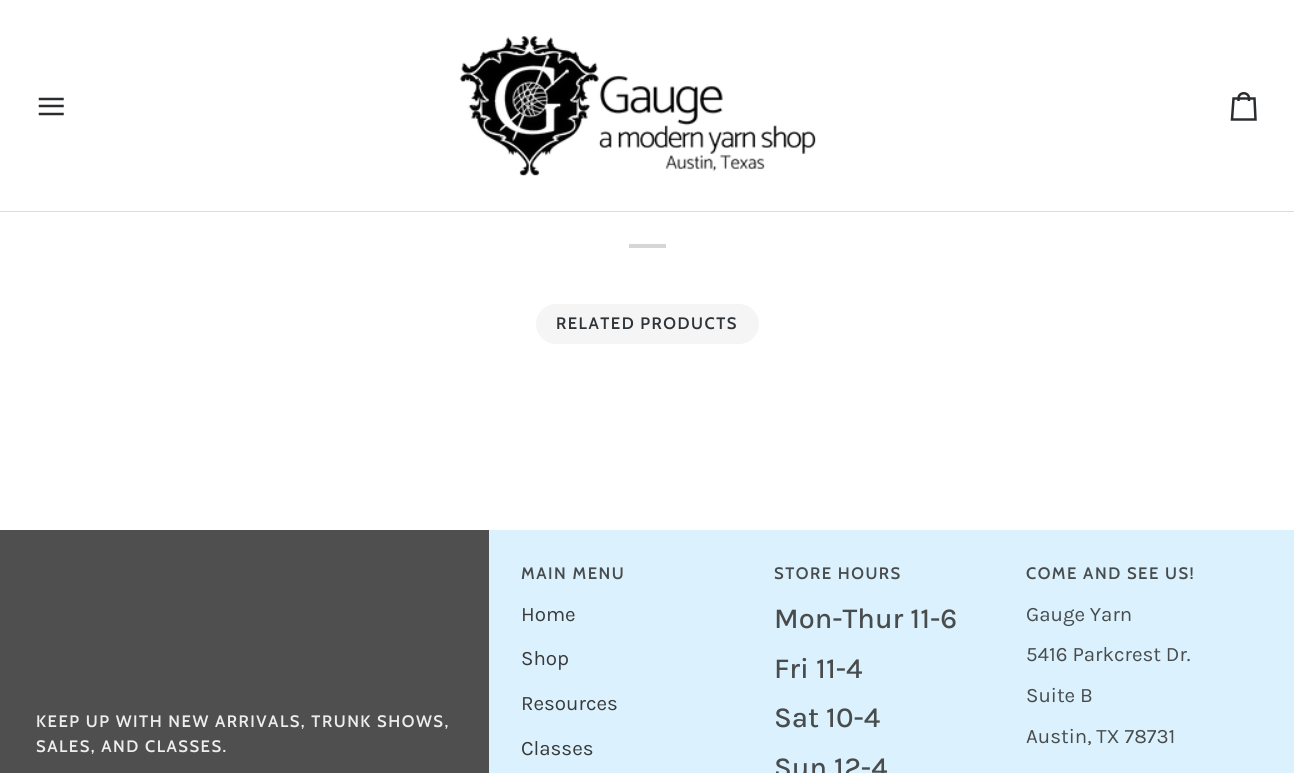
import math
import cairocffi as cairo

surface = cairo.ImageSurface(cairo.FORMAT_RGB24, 1294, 773)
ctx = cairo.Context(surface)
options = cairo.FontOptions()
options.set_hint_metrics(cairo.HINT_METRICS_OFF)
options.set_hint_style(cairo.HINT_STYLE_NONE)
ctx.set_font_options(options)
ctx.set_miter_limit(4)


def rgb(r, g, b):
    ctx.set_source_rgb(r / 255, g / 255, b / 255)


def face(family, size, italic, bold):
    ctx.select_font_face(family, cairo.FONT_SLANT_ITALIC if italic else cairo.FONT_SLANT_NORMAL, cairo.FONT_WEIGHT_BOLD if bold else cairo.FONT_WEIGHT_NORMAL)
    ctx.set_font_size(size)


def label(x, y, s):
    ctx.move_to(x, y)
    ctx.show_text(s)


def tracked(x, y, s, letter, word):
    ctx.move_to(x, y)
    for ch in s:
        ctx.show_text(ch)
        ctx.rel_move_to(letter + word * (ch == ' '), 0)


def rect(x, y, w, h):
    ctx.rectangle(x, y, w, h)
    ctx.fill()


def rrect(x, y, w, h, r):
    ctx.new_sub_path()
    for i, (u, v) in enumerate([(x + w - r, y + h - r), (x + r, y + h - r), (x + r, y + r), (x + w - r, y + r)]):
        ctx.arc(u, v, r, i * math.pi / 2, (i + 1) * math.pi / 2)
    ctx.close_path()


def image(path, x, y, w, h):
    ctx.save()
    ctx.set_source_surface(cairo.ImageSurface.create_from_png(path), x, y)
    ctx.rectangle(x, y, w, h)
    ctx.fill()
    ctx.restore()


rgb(255, 255, 255)
ctx.paint()
rgb(221, 221, 221)
rect(0, 211, 1294, 1)
ctx.new_path()
ctx.move_to(62.5, 99)
ctx.line_to(40, 99)
ctx.move_to(62.5, 106)
ctx.line_to(40, 106)
ctx.move_to(62.5, 114)
ctx.line_to(40, 114)
rgb(42, 45, 48)
ctx.set_line_width(2.5)
ctx.set_line_cap(cairo.LINE_CAP_SQUARE)
ctx.stroke()
image('image0.png', 459, 36, 357, 140)
ctx.new_path()
ctx.move_to(1249, 101)
ctx.line_to(1249, 98.5)
ctx.line_to(1254.5, 98.5)
ctx.line_to(1255.5, 119.5)
ctx.line_to(1232, 119.5)
ctx.line_to(1233.5, 98.5)
ctx.line_to(1238.5, 98.5)
ctx.curve_to(1238.5, 91.5, 1249, 91.5, 1249, 98.5)
ctx.line_to(1238.5, 98.5)
ctx.line_to(1238.5, 101)
ctx.set_line_cap(cairo.LINE_CAP_BUTT)
ctx.stroke()
rgb(213, 214, 215)
rect(629, 244, 37, 4)
rgb(245, 245, 245)
rrect(536, 304, 223, 40, 20)
ctx.fill()
face('Cabin SemiBold', 16.6, 0, 0)
rgb(46, 52, 56)
tracked(556, 329, 'RELATED PRODUCTS', 1.5, 0)
rgb(219, 242, 254)
rect(489, 530, 805, 243)
rgb(79, 79, 79)
rect(0, 530, 489, 243)
rgb(237, 237, 237)
tracked(36, 727, 'KEEP UP WITH NEW ARRIVALS, TRUNK SHOWS,', 1.5, 0)
tracked(36, 752, 'SALES, AND CLASSES.', 1.5, 0)
rgb(73, 76, 77)
tracked(521, 579, 'MAIN MENU', 1.5, 0)
face('Karla', 20.5, 0, 0)
rgb(57, 57, 57)
label(521, 621, 'Home')
label(521, 665, 'Shop')
label(521, 710, 'Resources')
label(521, 755, 'Classes')
face('Cabin SemiBold', 16.6, 0, 0)
rgb(73, 76, 77)
tracked(774, 579, 'STORE HOURS', 1.5, 0)
face('Karla Medium', 28.75, 0, 0)
label(774, 628, 'Mon-Thur 11-6')
label(774, 678, 'Fri 11-4')
label(774, 727, 'Sat 10-4')
label(774, 777, 'Sun 12-4')
face('Cabin SemiBold', 16.6, 0, 0)
tracked(1026, 579, 'COME AND SEE US!', 1.5, 0)
face('Karla', 20.5, 0, 0)
label(1026, 621, 'Gauge Yarn')
label(1026, 661, '5416 Parkcrest Dr.')
label(1026, 702, 'Suite B')
label(1026, 743, 'Austin, TX 78731')
surface.write_to_png('render.png')
